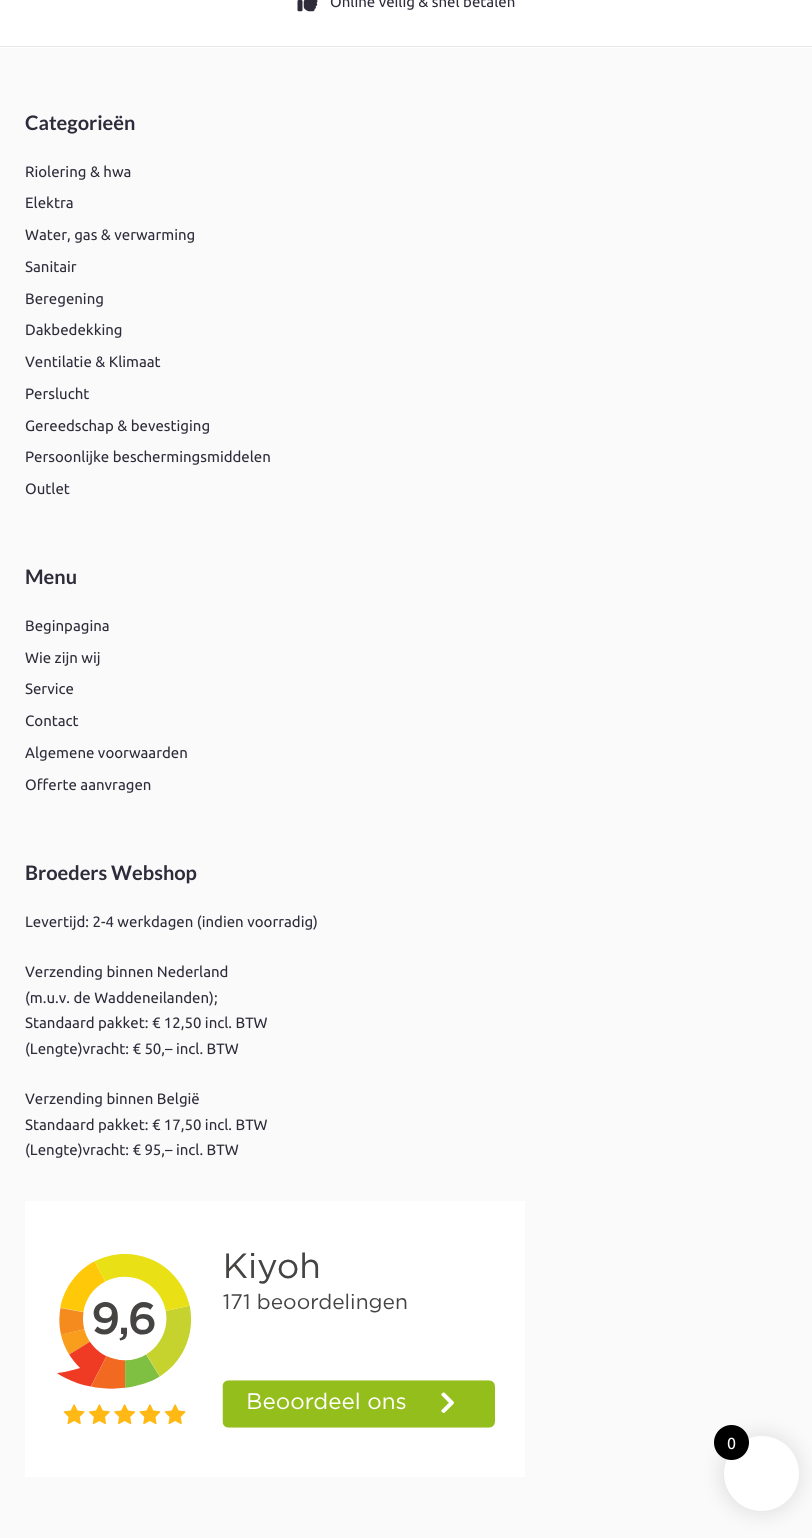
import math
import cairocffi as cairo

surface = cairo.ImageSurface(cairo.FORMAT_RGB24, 812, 1538)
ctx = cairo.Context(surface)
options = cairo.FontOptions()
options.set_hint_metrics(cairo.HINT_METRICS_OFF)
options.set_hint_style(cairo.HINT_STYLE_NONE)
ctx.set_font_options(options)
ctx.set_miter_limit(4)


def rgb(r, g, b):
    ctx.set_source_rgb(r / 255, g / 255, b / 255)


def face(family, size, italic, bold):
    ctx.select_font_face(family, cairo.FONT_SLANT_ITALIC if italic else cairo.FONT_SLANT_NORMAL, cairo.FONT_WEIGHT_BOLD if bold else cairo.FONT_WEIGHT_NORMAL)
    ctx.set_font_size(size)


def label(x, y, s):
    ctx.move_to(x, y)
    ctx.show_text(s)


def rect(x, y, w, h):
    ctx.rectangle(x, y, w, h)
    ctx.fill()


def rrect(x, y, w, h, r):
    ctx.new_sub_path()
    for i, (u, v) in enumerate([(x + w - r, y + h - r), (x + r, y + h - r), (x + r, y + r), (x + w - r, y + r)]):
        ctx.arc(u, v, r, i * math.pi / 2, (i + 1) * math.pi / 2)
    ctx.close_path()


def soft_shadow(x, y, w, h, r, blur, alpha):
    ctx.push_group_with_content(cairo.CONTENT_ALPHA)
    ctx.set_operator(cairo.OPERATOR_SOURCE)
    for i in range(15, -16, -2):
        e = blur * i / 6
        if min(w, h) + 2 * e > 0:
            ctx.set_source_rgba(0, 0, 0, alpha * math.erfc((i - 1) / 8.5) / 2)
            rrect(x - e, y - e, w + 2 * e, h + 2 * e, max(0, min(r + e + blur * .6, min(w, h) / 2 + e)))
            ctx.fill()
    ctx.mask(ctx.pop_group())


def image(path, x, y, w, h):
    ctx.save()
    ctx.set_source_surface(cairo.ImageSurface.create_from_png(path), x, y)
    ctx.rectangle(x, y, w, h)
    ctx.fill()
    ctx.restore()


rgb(255, 255, 255)
ctx.paint()
rgb(232, 232, 232)
rect(0, 46, 812, 1)
image('image0.png', 297, 0, 21, 12)
face('Ubuntu', 15, 0, 0)
rgb(46, 44, 58)
label(330, 7, 'Online veilig & snel betalen')
rgb(250, 250, 250)
rect(0, 48, 812, 1490)
face('Lato', 20, 0, 1)
rgb(46, 44, 58)
label(25, 130, 'Categorieën')
face('Ubuntu', 15, 0, 0)
label(25, 177, 'Riolering & hwa')
label(25, 208, 'Elektra')
label(25, 240, 'Water, gas & verwarming')
label(25, 272, 'Sanitair')
label(25, 304, 'Beregening')
label(25, 335, 'Dakbedekking')
label(25, 367, 'Ventilatie & Klimaat')
label(25, 399, 'Perslucht')
label(25, 431, 'Gereedschap & bevestiging')
label(25, 462, 'Persoonlijke beschermingsmiddelen')
label(25, 494, 'Outlet')
face('Lato', 20, 0, 1)
label(25, 584, 'Menu')
face('Ubuntu', 15, 0, 0)
label(25, 631, 'Beginpagina')
label(25, 663, 'Wie zijn wij')
label(25, 694, 'Service')
label(25, 726, 'Contact')
label(25, 758, 'Algemene voorwaarden')
label(25, 790, 'Offerte aanvragen')
face('Lato', 20, 0, 1)
label(25, 880, 'Broeders Webshop')
face('Ubuntu', 15, 0, 0)
label(25, 927, 'Levertijd: 2-4 werkdagen (indien voorradig)')
label(25, 977, 'Verzending binnen Nederland')
label(25, 1003, '(m.u.v. de Waddeneilanden);')
label(25, 1028, 'Standaard pakket: € 12,50 incl. BTW')
label(25, 1054, '(Lengte)vracht: € 50,– incl. BTW')
label(25, 1104, 'Verzending binnen België')
label(25, 1130, 'Standaard pakket: € 17,50 incl. BTW')
label(25, 1155, '(Lengte)vracht: € 95,– incl. BTW')
image('image1.png', 25, 1201, 500, 276)
rgb(0, 0, 0)
soft_shadow(721, 1434, 80, 80, 40, 9.5, 0.1)
rgb(255, 255, 255)
ctx.arc(761.5, 1473.5, 37.5, 0, 2 * math.pi)
ctx.fill()
rgb(0, 0, 0)
ctx.arc(731.5, 1442.5, 17.5, 0, 2 * math.pi)
ctx.fill()
face('Ubuntu', 16, 0, 0)
rgb(255, 255, 255)
label(727, 1449, '0')
surface.write_to_png('render.png')
